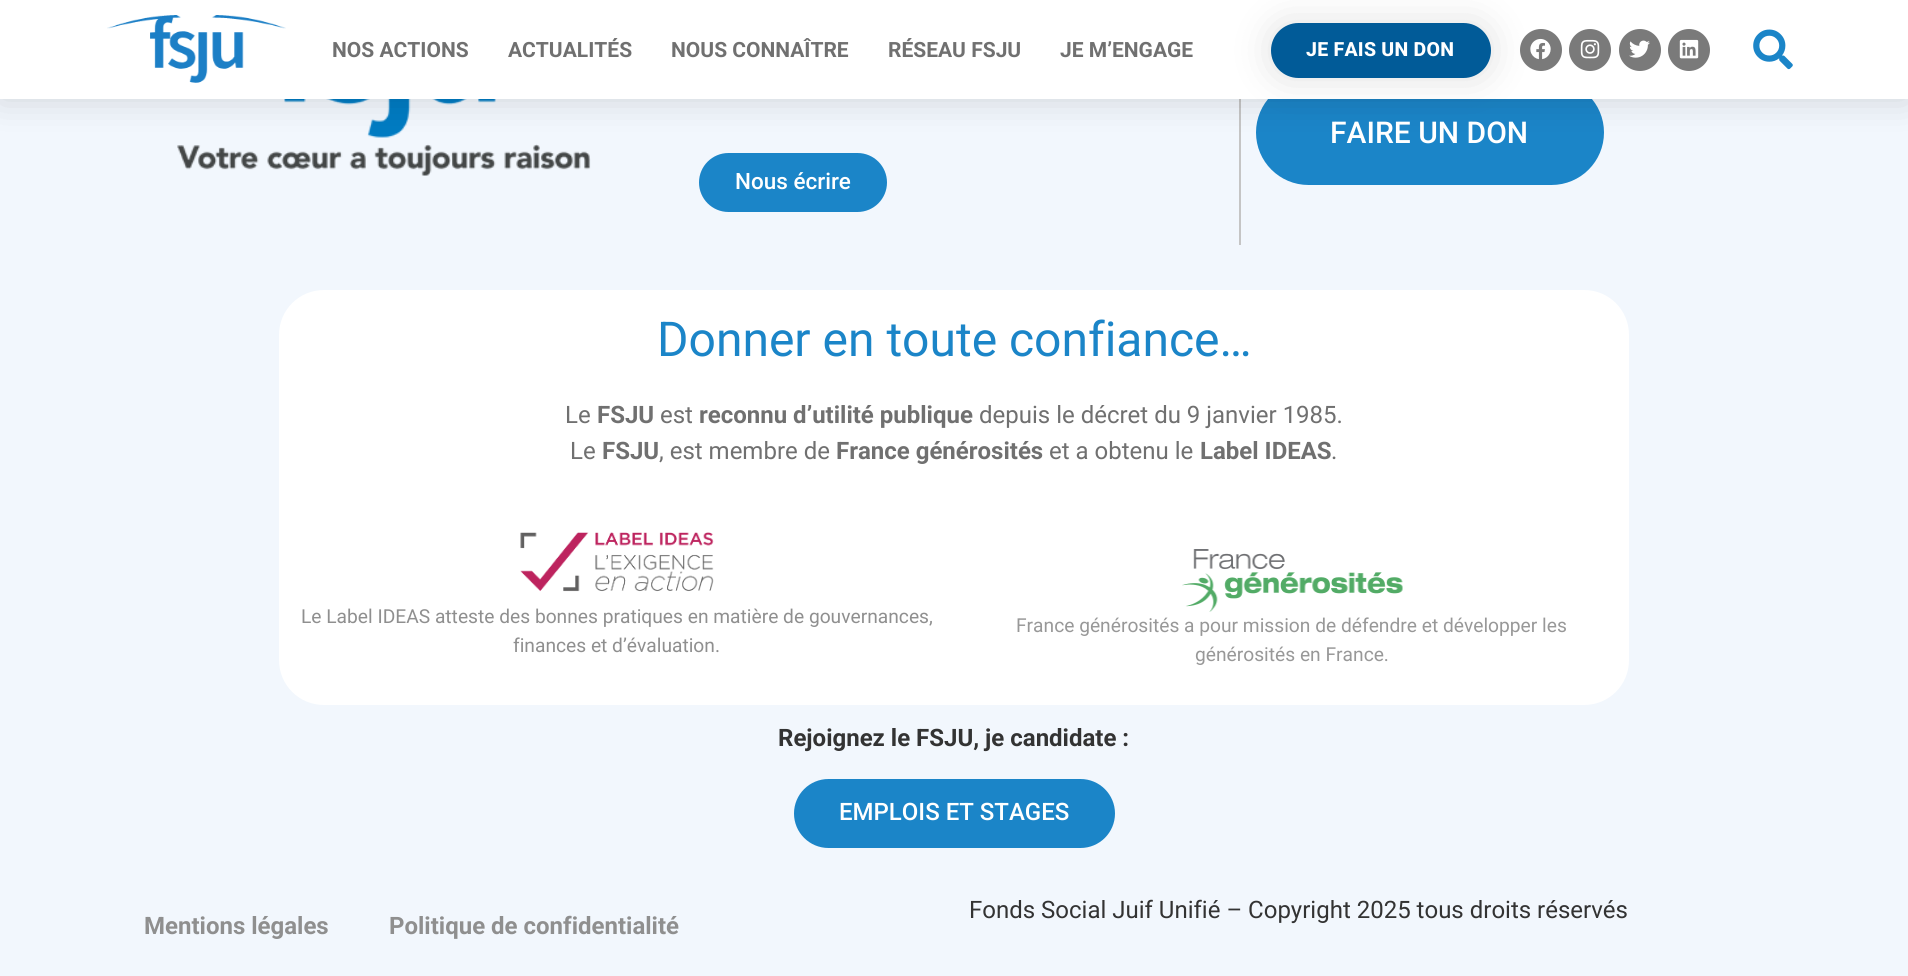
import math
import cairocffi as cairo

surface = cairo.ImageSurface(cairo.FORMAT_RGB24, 1908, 976)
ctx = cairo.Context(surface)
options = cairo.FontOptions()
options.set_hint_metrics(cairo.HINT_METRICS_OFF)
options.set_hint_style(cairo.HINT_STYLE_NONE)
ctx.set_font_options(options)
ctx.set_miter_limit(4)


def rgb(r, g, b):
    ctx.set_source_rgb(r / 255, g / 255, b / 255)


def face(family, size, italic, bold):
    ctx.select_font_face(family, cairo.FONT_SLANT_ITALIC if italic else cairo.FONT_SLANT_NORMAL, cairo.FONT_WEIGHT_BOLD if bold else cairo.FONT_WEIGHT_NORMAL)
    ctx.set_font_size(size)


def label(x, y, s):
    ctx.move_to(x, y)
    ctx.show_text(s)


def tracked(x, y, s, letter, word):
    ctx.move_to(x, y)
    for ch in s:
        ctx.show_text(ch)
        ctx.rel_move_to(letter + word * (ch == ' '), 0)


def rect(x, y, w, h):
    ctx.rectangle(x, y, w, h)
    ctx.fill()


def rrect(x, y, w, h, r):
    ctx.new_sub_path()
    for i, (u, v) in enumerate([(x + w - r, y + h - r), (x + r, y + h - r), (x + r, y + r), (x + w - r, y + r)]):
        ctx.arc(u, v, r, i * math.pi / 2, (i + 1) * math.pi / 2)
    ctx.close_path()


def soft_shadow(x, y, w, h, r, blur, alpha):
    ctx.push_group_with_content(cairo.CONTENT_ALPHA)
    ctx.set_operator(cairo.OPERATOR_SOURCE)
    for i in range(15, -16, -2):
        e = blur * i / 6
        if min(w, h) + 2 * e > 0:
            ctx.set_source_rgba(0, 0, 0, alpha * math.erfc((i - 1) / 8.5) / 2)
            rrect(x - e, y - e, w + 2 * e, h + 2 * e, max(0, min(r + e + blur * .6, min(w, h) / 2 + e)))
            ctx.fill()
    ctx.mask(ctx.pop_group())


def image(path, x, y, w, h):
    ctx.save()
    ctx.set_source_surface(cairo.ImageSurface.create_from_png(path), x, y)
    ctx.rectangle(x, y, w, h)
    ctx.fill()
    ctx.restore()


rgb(242, 247, 253)
ctx.paint()
image('image6.png', 177, 99, 414, 77)
rgb(197, 197, 197)
rect(1239, 99, 2, 146)
rgb(27, 133, 200)
rrect(1256, 80, 348, 105, 52.5)
ctx.fill()
rrect(699, 153, 188, 59, 29.5)
ctx.fill()
rgb(0, 0, 0)
soft_shadow(0, 0, 1908, 99, 0, 18, 0.15)
rgb(255, 255, 255)
rect(0, 0, 1908, 99)
image('image0.png', 107, 15, 179, 68)
face('Roboto', 21, 0, 1)
rgb(112, 112, 112)
label(332, 57, 'NOS ACTIONS')
label(508, 57, 'ACTUALITÉS')
label(671, 57, 'NOUS CONNAÎTRE')
label(888, 57, 'RÉSEAU FSJU')
label(1060, 57, 'JE M’ENGAGE')
rgb(0, 0, 0)
soft_shadow(1271, 23, 220, 55, 27.5, 20, 0.12)
rgb(1, 91, 152)
rrect(1271, 23, 220, 55, 27.5)
ctx.fill()
face('Roboto ExtraBold', 19.5, 0, 0)
rgb(255, 255, 255)
tracked(1306, 56, 'JE FAIS UN DON', 0.25, 0)
rgb(122, 122, 122)
ctx.new_path()
ctx.arc(1541, 50, 21, 0, 2 * math.pi)
ctx.fill()
image('image1.png', 1530, 38, 21, 22)
ctx.arc(1590, 50, 21, 0, 2 * math.pi)
ctx.fill()
image('image2.png', 1580, 39, 20, 20)
ctx.arc(1640, 50, 21, 0, 2 * math.pi)
ctx.fill()
image('image3.png', 1629, 40, 21, 18)
ctx.arc(1689, 50, 21, 0, 2 * math.pi)
ctx.fill()
image('image4.png', 1679, 39, 20, 20)
image('image5.png', 1753, 29, 40, 41)
face('Roboto Medium', 30, 0, 0)
rgb(255, 255, 255)
label(1330, 143, 'FAIRE UN DON')
face('Roboto Medium', 22.5, 0, 0)
label(735, 189, 'Nous écrire')
ctx.new_path()
ctx.move_to(324, 290)
ctx.line_to(1584, 290)
ctx.curve_to(1609, 290, 1629, 310, 1629, 335)
ctx.line_to(1629, 506)
ctx.line_to(279, 506)
ctx.line_to(279, 335)
ctx.curve_to(279, 310, 299, 290, 324, 290)
ctx.close_path()
ctx.fill()
face('Roboto', 48, 0, 0)
rgb(27, 133, 200)
label(657, 356, 'Donner en toute confiance…')
face('Roboto', 24, 0, 0)
rgb(112, 112, 112)
label(565, 423, 'Le')
face('Roboto', 24, 0, 1)
label(597, 423, 'FSJU')
face('Roboto', 24, 0, 0)
label(660, 423, 'est')
face('Roboto', 24, 0, 1)
label(699, 423, 'reconnu d’utilité publique')
face('Roboto', 24, 0, 0)
label(979, 423, 'depuis le décret du 9 janvier 1985.')
label(570, 459, 'Le')
face('Roboto', 24, 0, 1)
label(602, 459, 'FSJU')
face('Roboto', 24, 0, 0)
label(659, 459, ', est membre de')
face('Roboto', 24, 0, 1)
label(836, 459, 'France générosités')
face('Roboto', 24, 0, 0)
label(1049, 459, 'et a obtenu le')
face('Roboto', 24, 0, 1)
label(1200, 459, 'Label IDEAS')
face('Roboto', 24, 0, 0)
label(1331, 459, '.')
rgb(255, 255, 255)
ctx.new_path()
ctx.move_to(279, 506)
ctx.line_to(1629, 506)
ctx.line_to(1629, 660)
ctx.curve_to(1629, 685, 1609, 705, 1584, 705)
ctx.line_to(324, 705)
ctx.curve_to(299, 705, 279, 685, 279, 660)
ctx.close_path()
ctx.fill()
image('image7.png', 520, 532, 194, 60)
face('Roboto', 19.2, 0, 0)
rgb(143, 143, 143)
label(301, 623, 'Le Label IDEAS atteste des bonnes pratiques en matière de gouvernances,')
label(513, 652, 'finances et d’évaluation.')
image('image8.png', 1182, 549, 221, 63)
rgb(152, 152, 152)
label(1016, 632, 'France générosités a pour mission de défendre et développer les')
label(1195, 661, 'générosités en France.')
face('Roboto', 24, 0, 1)
rgb(51, 51, 51)
label(778, 746, 'Rejoignez le FSJU, je candidate :')
rgb(27, 133, 200)
rrect(794, 779, 321, 69, 34.5)
ctx.fill()
face('Roboto Medium', 24, 0, 0)
rgb(255, 255, 255)
label(839, 820, 'EMPLOIS ET STAGES')
face('Roboto', 24, 0, 0)
rgb(51, 51, 51)
label(969, 918, 'Fonds Social Juif Unifié – Copyright 2025 tous droits réservés')
face('Roboto', 24, 0, 1)
rgb(143, 143, 143)
label(144, 934, 'Mentions légales')
label(389, 934, 'Politique de confidentialité')
surface.write_to_png('render.png')
